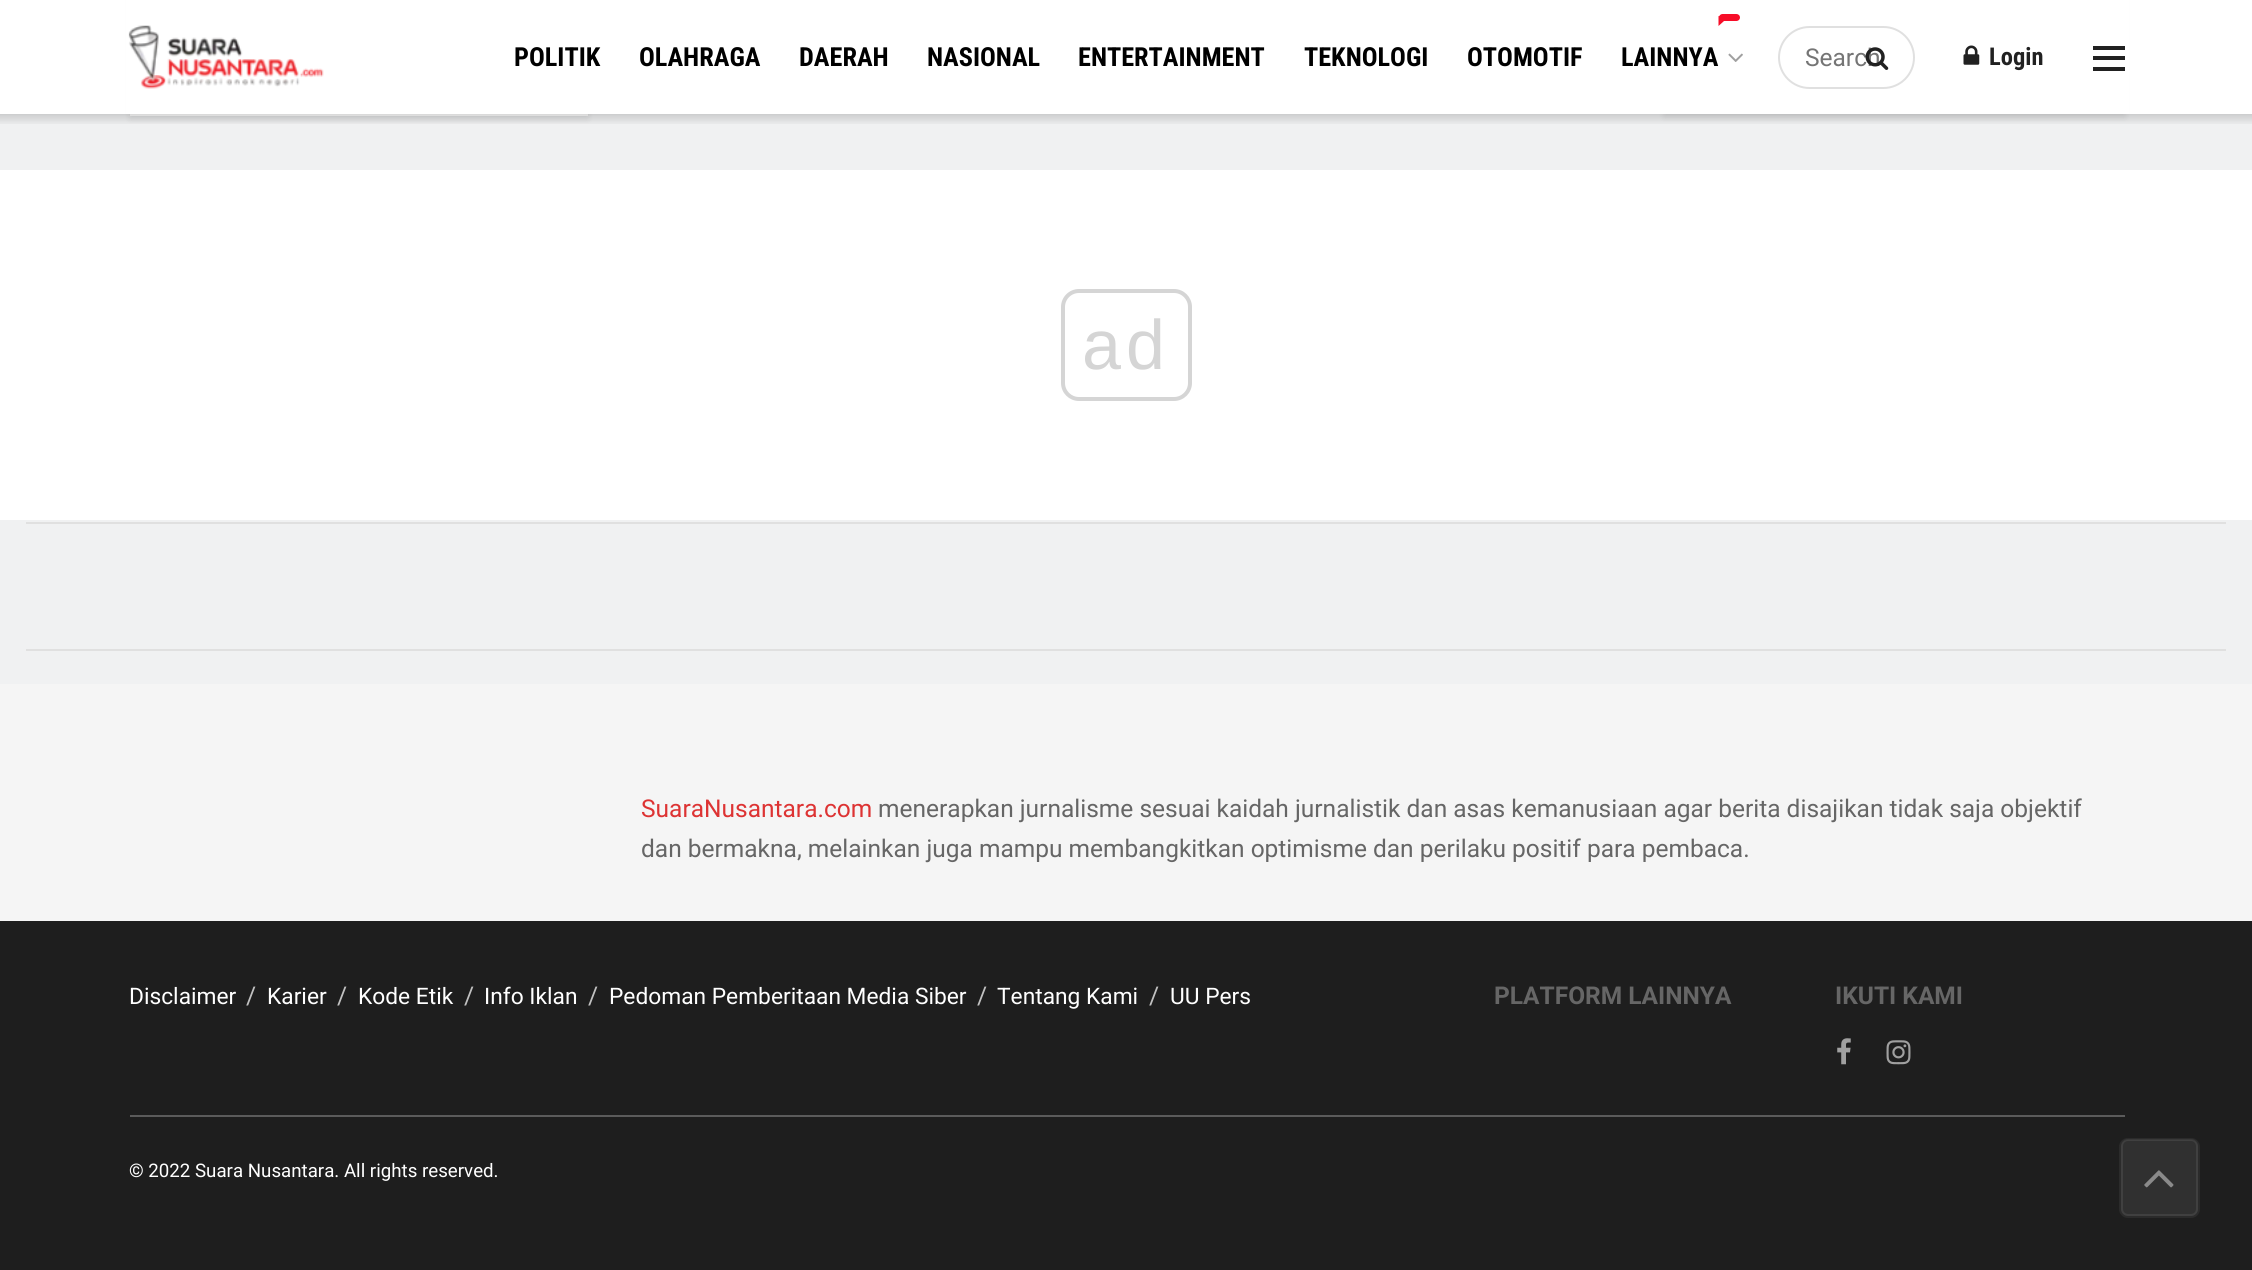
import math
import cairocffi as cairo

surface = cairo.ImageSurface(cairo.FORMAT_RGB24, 2252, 1270)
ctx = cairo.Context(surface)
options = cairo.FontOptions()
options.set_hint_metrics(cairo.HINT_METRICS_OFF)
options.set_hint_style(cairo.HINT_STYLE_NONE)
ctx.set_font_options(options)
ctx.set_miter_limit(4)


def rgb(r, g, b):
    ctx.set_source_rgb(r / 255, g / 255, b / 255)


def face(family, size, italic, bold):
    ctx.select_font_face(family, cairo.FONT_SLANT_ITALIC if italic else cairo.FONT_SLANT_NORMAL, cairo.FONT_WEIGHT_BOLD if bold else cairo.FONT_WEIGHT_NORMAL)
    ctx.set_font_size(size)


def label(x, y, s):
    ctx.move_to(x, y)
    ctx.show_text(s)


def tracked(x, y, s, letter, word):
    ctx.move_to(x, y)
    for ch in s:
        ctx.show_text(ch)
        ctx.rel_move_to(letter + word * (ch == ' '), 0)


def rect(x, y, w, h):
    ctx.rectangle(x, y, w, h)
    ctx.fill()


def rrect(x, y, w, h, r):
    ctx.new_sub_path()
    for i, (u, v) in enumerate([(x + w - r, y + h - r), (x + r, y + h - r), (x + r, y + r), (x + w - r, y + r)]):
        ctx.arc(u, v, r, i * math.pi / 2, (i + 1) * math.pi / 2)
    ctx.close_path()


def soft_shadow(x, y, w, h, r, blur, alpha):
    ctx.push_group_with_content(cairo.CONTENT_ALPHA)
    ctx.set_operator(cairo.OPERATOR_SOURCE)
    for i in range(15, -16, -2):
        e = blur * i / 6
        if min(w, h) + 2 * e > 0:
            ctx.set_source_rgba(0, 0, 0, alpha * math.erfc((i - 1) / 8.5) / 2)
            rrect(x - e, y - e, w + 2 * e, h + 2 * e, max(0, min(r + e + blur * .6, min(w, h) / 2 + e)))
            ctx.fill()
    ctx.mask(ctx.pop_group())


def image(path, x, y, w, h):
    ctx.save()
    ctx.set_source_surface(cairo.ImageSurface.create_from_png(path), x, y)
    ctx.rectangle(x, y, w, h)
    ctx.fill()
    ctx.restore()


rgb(255, 255, 255)
ctx.paint()
rgb(240, 241, 242)
rect(0, 114, 2252, 56)
rgb(0, 0, 0)
soft_shadow(130, -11, 458, 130, 0, 3.5, 0.08)
rgb(255, 255, 255)
rect(130, 114, 458, 2)
rgb(0, 0, 0)
soft_shadow(1664, -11, 461, 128, 0, 3.5, 0.08)
rgb(255, 255, 255)
rect(126, 0, 2003, 114)
image('image0.png', 128, 25, 196, 64)
face('Roboto Condensed', 26.25, 0, 1)
rgb(0, 0, 0)
label(514, 66, 'POLITIK')
label(639, 66, 'OLAHRAGA')
label(799, 66, 'DAERAH')
label(927, 66, 'NASIONAL')
label(1078, 66, 'ENTERTAINMENT')
label(1304, 66, 'TEKNOLOGI')
label(1467, 66, 'OTOMOTIF')
rgb(247, 13, 40)
rrect(1719, 14, 21, 7, 3.5)
ctx.fill()
ctx.new_path()
ctx.move_to(1718.5, 16)
ctx.line_to(1729, 16)
ctx.line_to(1724, 21)
ctx.close_path()
ctx.fill()
ctx.new_path()
ctx.move_to(1718.5, 26)
ctx.line_to(1718.5, 16)
ctx.line_to(1724, 21)
ctx.close_path()
ctx.fill()
rgb(0, 0, 0)
label(1621, 66, 'LAINNYA')
image('image1.png', 1728, 53, 15, 9)
rrect(1779, 27, 135, 61, 30.5)
rgb(224, 224, 224)
ctx.stroke()
face('Roboto', 24.5, 0, 0)
rgb(117, 117, 117)
label(1805, 66, 'Search')
image('image2.png', 1865, 47, 24, 23)
image('image3.png', 1963, 45, 17, 20)
face('Roboto Condensed', 24.5, 0, 1)
rgb(33, 33, 33)
label(1989, 65, 'Login')
rect(2093, 46, 32, 4)
rect(2093, 56, 32, 4)
rect(2093, 67, 32, 4)
gradient = cairo.LinearGradient(1126, 114, 1126, 126)
gradient.add_color_stop_rgba(0, 0, 0, 0, 0.15)
gradient.add_color_stop_rgba(1, 0, 0, 0, 0)
ctx.set_source(gradient)
rect(0, 114, 2252, 10)
rrect(1063, 291, 127, 108, 16)
rgb(213, 213, 213)
ctx.set_line_width(4)
ctx.stroke()
face('Liberation Sans', 70, 0, 0)
tracked(1082, 369, 'ad', 5, 0)
rgb(240, 241, 242)
rect(0, 520, 2252, 164)
rgb(224, 224, 224)
rect(26, 522, 2200, 2)
rect(26, 649, 2200, 2)
rgb(245, 245, 245)
rect(0, 684, 2252, 237)
face('Roboto', 24.5, 0, 0)
rgb(221, 51, 51)
label(641, 817, 'SuaraNusantara.com')
rgb(102, 102, 102)
label(878, 817, 'menerapkan jurnalisme sesuai kaidah jurnalistik dan asas kemanusiaan agar berita disajikan tidak saja objektif')
label(641, 857, 'dan bermakna, melainkan juga mampu membangkitkan optimisme dan perilaku positif para pembaca.')
rgb(30, 30, 30)
rect(0, 921, 2252, 349)
face('Roboto', 22.75, 0, 0)
rgb(255, 255, 255)
label(129, 1004, 'Disclaimer')
face('Roboto', 24.5, 0, 0)
rgb(193, 193, 193)
label(246, 1004, '/')
face('Roboto', 22.75, 0, 0)
rgb(255, 255, 255)
label(267, 1004, 'Karier')
face('Roboto', 24.5, 0, 0)
rgb(193, 193, 193)
label(337, 1004, '/')
face('Roboto', 22.75, 0, 0)
rgb(255, 255, 255)
label(358, 1004, 'Kode Etik')
face('Roboto', 24.5, 0, 0)
rgb(193, 193, 193)
label(464, 1004, '/')
face('Roboto', 22.75, 0, 0)
rgb(255, 255, 255)
label(484, 1004, 'Info Iklan')
face('Roboto', 24.5, 0, 0)
rgb(193, 193, 193)
label(588, 1004, '/')
face('Roboto', 22.75, 0, 0)
rgb(255, 255, 255)
label(609, 1004, 'Pedoman Pemberitaan Media Siber')
face('Roboto', 24.5, 0, 0)
rgb(193, 193, 193)
label(977, 1004, '/')
face('Roboto', 22.75, 0, 0)
rgb(255, 255, 255)
label(997, 1004, 'Tentang Kami')
face('Roboto', 24.5, 0, 0)
rgb(193, 193, 193)
label(1149, 1004, '/')
face('Roboto', 22.75, 0, 0)
rgb(255, 255, 255)
label(1170, 1004, 'UU Pers')
face('Roboto', 24.5, 0, 1)
rgb(102, 102, 102)
label(1494, 1004, 'PLATFORM LAINNYA')
label(1835, 1004, 'IKUTI KAMI')
image('image4.png', 1837, 1038, 14, 27)
image('image5.png', 1886, 1040, 25, 25)
rgb(91, 91, 91)
rect(130, 1115, 1995, 2)
face('Roboto', 18.7, 0, 0)
rgb(255, 255, 255)
label(129, 1177, '© 2022 Suara Nusantara. All rights reserved.')
rgb(48, 48, 48)
rrect(2119, 1138, 81, 80, 9)
ctx.fill()
rrect(2122, 1140, 75, 75, 6)
rgb(64, 64, 64)
ctx.set_line_width(2)
ctx.stroke()
rrect(2120, 1139, 79, 78, 8)
ctx.set_source_rgba(0.024, 0.024, 0.024, 0.11)
ctx.stroke()
image('image6.png', 2144, 1170, 30, 18)
surface.write_to_png('render.png')
